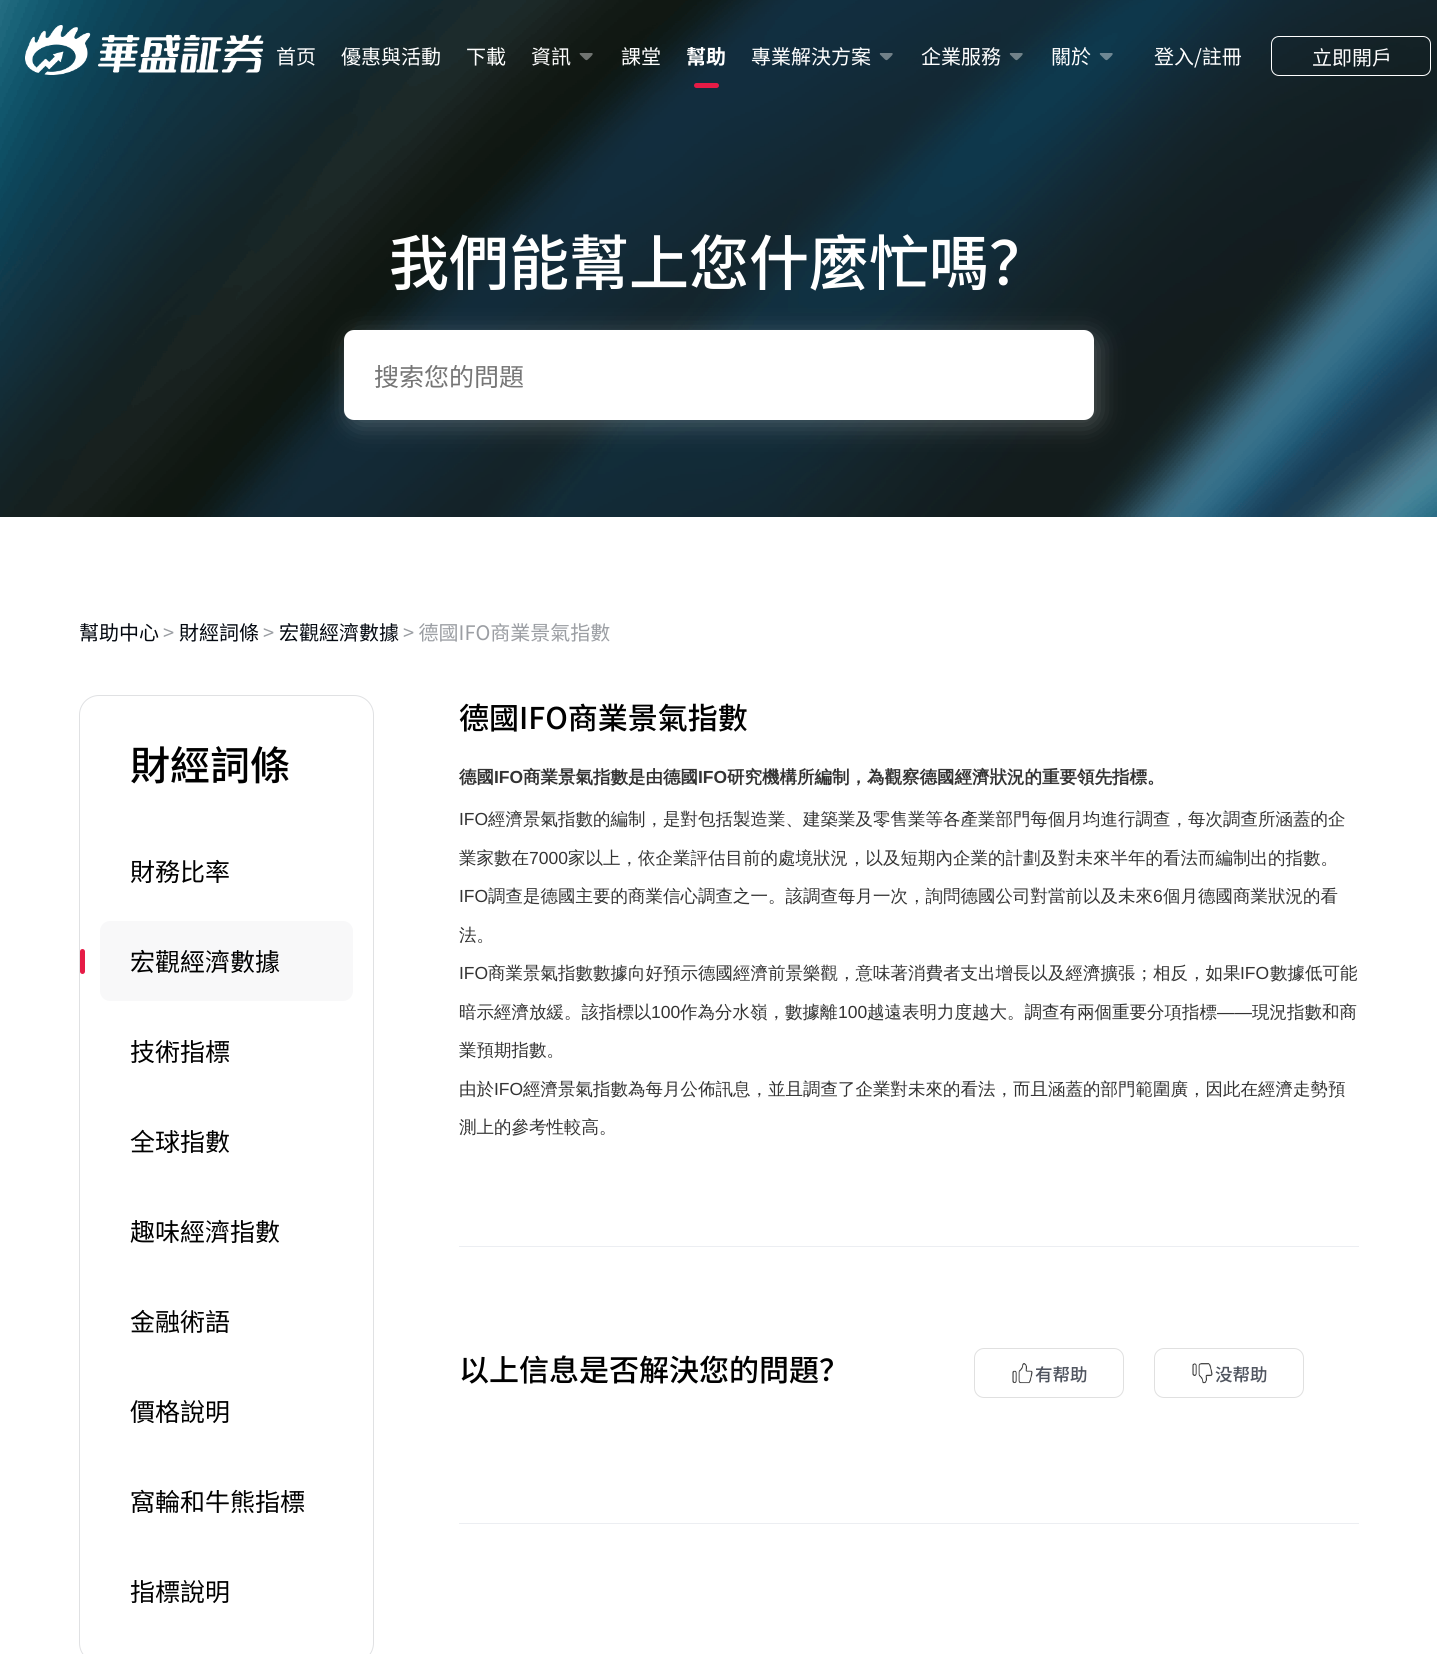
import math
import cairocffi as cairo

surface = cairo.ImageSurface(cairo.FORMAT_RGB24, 1437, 1654)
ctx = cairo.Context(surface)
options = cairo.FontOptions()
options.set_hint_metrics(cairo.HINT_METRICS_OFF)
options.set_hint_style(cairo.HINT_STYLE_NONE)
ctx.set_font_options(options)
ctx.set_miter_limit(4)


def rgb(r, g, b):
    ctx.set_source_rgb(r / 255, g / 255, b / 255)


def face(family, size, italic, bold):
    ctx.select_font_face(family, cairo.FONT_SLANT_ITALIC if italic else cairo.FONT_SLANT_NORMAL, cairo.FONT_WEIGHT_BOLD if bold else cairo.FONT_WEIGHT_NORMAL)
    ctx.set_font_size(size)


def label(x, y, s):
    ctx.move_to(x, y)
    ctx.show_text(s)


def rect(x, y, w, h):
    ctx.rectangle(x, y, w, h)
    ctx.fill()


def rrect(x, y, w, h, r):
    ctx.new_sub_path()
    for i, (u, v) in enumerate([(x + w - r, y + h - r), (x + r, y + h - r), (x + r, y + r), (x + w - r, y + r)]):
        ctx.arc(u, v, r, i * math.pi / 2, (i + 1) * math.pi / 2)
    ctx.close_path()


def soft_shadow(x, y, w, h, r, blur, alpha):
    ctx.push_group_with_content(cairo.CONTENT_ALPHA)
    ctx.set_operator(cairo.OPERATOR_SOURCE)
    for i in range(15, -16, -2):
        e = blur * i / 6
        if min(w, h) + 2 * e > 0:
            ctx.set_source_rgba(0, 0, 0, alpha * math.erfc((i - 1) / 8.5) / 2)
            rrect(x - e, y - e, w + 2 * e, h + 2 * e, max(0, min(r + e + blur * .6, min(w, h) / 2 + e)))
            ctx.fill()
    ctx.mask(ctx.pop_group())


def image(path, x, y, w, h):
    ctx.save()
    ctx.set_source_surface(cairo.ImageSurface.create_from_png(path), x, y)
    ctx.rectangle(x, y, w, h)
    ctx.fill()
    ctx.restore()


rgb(255, 255, 255)
ctx.paint()
image('image1.png', 0, 0, 1437, 517)
image('image0.png', 25, 25, 239, 50)
face('Noto Sans CJK SC', 20, 0, 0)
rgb(255, 255, 255)
label(276, 64, '首页')
label(341, 64, '優惠與活動')
label(466, 64, '下載')
label(531, 64, '資訊')
ctx.save()
ctx.rectangle(576, 53, 20, 10)
ctx.clip()
rgb(112, 116, 113)
ctx.new_path()
ctx.move_to(587, 47.5)
ctx.line_to(591.5, 52)
ctx.curve_to(594, 54.5, 592, 55, 590, 57.5)
ctx.curve_to(587.5, 59.5, 587, 61.5, 584.5, 59)
ctx.line_to(580, 54.5)
ctx.curve_to(578.5, 53, 582, 51, 583, 50)
ctx.curve_to(583.5, 49.5, 586, 46, 587, 47.5)
ctx.close_path()
ctx.fill()
ctx.restore()
label(621, 64, '課堂')
face('Noto Sans CJK SC', 20, 0, 1)
label(686, 64, '幫助')
rgb(230, 27, 70)
rrect(694, 83, 25, 5, 2.5)
ctx.fill()
face('Noto Sans CJK SC', 20, 0, 0)
rgb(255, 255, 255)
label(751, 64, '專業解決方案')
ctx.save()
ctx.rectangle(876, 53, 20, 10)
ctx.clip()
rgb(113, 128, 136)
ctx.new_path()
ctx.move_to(887.5, 47.5)
ctx.line_to(891.5, 52)
ctx.curve_to(894, 54.5, 892, 55, 890, 57.5)
ctx.curve_to(887.5, 59.5, 887, 61.5, 884.5, 59)
ctx.line_to(880, 54.5)
ctx.curve_to(879, 53, 882, 51, 883, 50)
ctx.curve_to(883.5, 49.5, 886, 46, 887.5, 47.5)
ctx.close_path()
ctx.fill()
ctx.restore()
label(921, 64, '企業服務')
ctx.save()
ctx.rectangle(1006, 53, 20, 10)
ctx.clip()
ctx.set_source_rgba(1, 1, 1, 0.4)
ctx.new_path()
ctx.move_to(1017.5, 47.5)
ctx.line_to(1021.5, 52)
ctx.curve_to(1024, 54.5, 1022, 55, 1020, 57.5)
ctx.curve_to(1017.5, 59.5, 1017, 61.5, 1014.5, 59)
ctx.line_to(1010, 54.5)
ctx.curve_to(1009, 53, 1012, 51, 1013, 50)
ctx.curve_to(1013.5, 49.5, 1016, 46, 1017.5, 47.5)
ctx.close_path()
ctx.fill()
ctx.restore()
label(1051, 64, '關於')
ctx.save()
ctx.rectangle(1096, 53, 20, 10)
ctx.clip()
rgb(110, 135, 147)
ctx.new_path()
ctx.move_to(1107.5, 47.5)
ctx.line_to(1111.5, 52)
ctx.curve_to(1114, 54.5, 1112, 55, 1110, 57.5)
ctx.curve_to(1107.5, 59.5, 1107, 61.5, 1104.5, 59)
ctx.line_to(1100, 54.5)
ctx.curve_to(1099, 53, 1102, 51, 1103, 50)
ctx.curve_to(1103.5, 49.5, 1106, 46, 1107.5, 47.5)
ctx.close_path()
ctx.fill()
ctx.restore()
label(1154, 64, '登入/註冊')
rrect(1271.5, 36.5, 159, 39, 7.5)
ctx.set_line_width(1)
ctx.stroke()
label(1312, 65, '立即開戶')
face('Noto Sans CJK SC Medium', 60, 0, 0)
label(389, 285, '我們能幫上您什麼忙嗎？')
rgb(255, 255, 255)
soft_shadow(349, 335, 750, 90, 10, 12.5, 0.24)
rgb(255, 255, 255)
rrect(344, 330, 750, 90, 10)
ctx.fill()
face('Noto Sans CJK SC', 25, 0, 0)
rgb(117, 117, 117)
label(374, 386, '搜索您的問題')
face('Noto Sans CJK SC', 20, 0, 0)
rgb(3, 8, 16)
label(79, 640, '幫助中心')
rgb(155, 158, 163)
label(163, 640, '>')
rgb(3, 8, 16)
label(179, 640, '財經詞條')
rgb(155, 158, 163)
label(263, 640, '>')
rgb(3, 8, 16)
label(279, 640, '宏觀經濟數據')
rgb(155, 158, 163)
label(403, 640, '> 德國IFO商業景氣指數')
rrect(79.5, 695.5, 294, 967, 19.5)
rgb(224, 225, 227)
ctx.stroke()
face('Noto Sans CJK SC Medium', 40, 0, 0)
rgb(0, 0, 0)
label(130, 780, '財經詞條')
face('Noto Sans CJK SC', 25, 0, 0)
label(130, 881, '財務比率')
rgb(248, 248, 249)
rrect(100, 921, 253, 80, 10)
ctx.fill()
rgb(230, 27, 70)
rrect(80, 949, 5, 25, 2.5)
ctx.fill()
rgb(0, 0, 0)
label(130, 971, '宏觀經濟數據')
label(130, 1061, '技術指標')
label(130, 1151, '全球指數')
label(130, 1241, '趣味經濟指數')
label(130, 1331, '金融術語')
label(130, 1421, '價格說明')
label(130, 1511, '窩輪和牛熊指標')
label(130, 1601, '指標說明')
face('Noto Sans CJK SC Medium', 30, 0, 0)
label(459, 729, '德國IFO商業景氣指數')
face('WenQuanYi Zen Hei', 17.5, 0, 1)
rgb(51, 51, 51)
label(459, 783, '德國')
face('Liberation Sans', 17.5, 0, 1)
label(494, 783, 'IFO')
face('WenQuanYi Zen Hei', 17.5, 0, 1)
label(523, 783, '商業景氣指數是由德國')
face('Liberation Sans', 17.5, 0, 1)
label(698, 783, 'IFO')
face('WenQuanYi Zen Hei', 17.5, 0, 1)
label(727, 783, '研究機構所編制，為觀察德國經濟狀況的重要領先指標。')
face('Liberation Sans', 17.5, 0, 0)
label(459, 825, 'IFO')
face('WenQuanYi Zen Hei Medium', 17.5, 0, 0)
label(488, 825, '經濟景氣指數的編制，是對包括製造業、建築業及零售業等各產業部門每個月均進行調查，每次調查所涵蓋的企')
label(459, 864, '業家數在')
face('Liberation Sans', 17.5, 0, 0)
label(529, 864, '7000')
face('WenQuanYi Zen Hei Medium', 17.5, 0, 0)
label(568, 864, '家以上，依企業評估目前的處境狀況，以及短期內企業的計劃及對未來半年的看法而編制出的指數。')
face('Liberation Sans', 17.5, 0, 0)
label(459, 902, 'IFO')
face('WenQuanYi Zen Hei Medium', 17.5, 0, 0)
label(488, 902, '調查是德國主要的商業信心調查之一。該調查每月一次，詢問德國公司對當前以及未來')
face('Liberation Sans', 17.5, 0, 0)
label(1153, 902, '6')
face('WenQuanYi Zen Hei Medium', 17.5, 0, 0)
label(1163, 902, '個月德國商業狀況的看')
label(459, 941, '法。')
face('Liberation Sans', 17.5, 0, 0)
label(459, 979, 'IFO')
face('WenQuanYi Zen Hei Medium', 17.5, 0, 0)
label(488, 979, '商業景氣指數數據向好預示德國經濟前景樂觀，意味著消費者支出增長以及經濟擴張；相反，如果')
face('Liberation Sans', 17.5, 0, 0)
label(1240, 979, 'IFO')
face('WenQuanYi Zen Hei Medium', 17.5, 0, 0)
label(1270, 979, '數據低可能')
label(459, 1018, '暗示經濟放緩。該指標以')
face('Liberation Sans', 17.5, 0, 0)
label(651, 1018, '100')
face('WenQuanYi Zen Hei Medium', 17.5, 0, 0)
label(680, 1018, '作為分水嶺，數據離')
face('Liberation Sans', 17.5, 0, 0)
label(838, 1018, '100')
face('WenQuanYi Zen Hei Medium', 17.5, 0, 0)
label(867, 1018, '越遠表明力度越大。調查有兩個重要分項指標')
face('Liberation Sans', 17.5, 0, 0)
label(1217, 1018, '——')
face('WenQuanYi Zen Hei Medium', 17.5, 0, 0)
label(1252, 1018, '現況指數和商')
label(459, 1056, '業預期指數。')
label(459, 1095, '由於')
face('Liberation Sans', 17.5, 0, 0)
label(494, 1095, 'IFO')
face('WenQuanYi Zen Hei Medium', 17.5, 0, 0)
label(523, 1095, '經濟景氣指數為每月公佈訊息，並且調查了企業對未來的看法，而且涵蓋的部門範圍廣，因此在經濟走勢預')
label(459, 1133, '測上的參考性較高。')
rgb(236, 238, 242)
rect(459, 1246, 900, 1)
rect(459, 1523, 900, 1)
face('Noto Sans CJK SC Medium', 30, 0, 0)
rgb(0, 0, 0)
label(459, 1381, '以上信息是否解決您的問題？')
rrect(974.5, 1348.5, 149, 49, 9.5)
rgb(224, 224, 224)
ctx.stroke()
image('image2.png', 1012, 1363, 21, 21)
face('Noto Sans CJK SC Medium', 17.5, 0, 0)
rgb(79, 84, 94)
label(1035, 1381, '有帮助')
rrect(1154.5, 1348.5, 149, 49, 9.5)
rgb(224, 224, 224)
ctx.stroke()
image('image3.png', 1192, 1363, 21, 21)
rgb(79, 84, 94)
label(1215, 1381, '没帮助')
surface.write_to_png('render.png')
